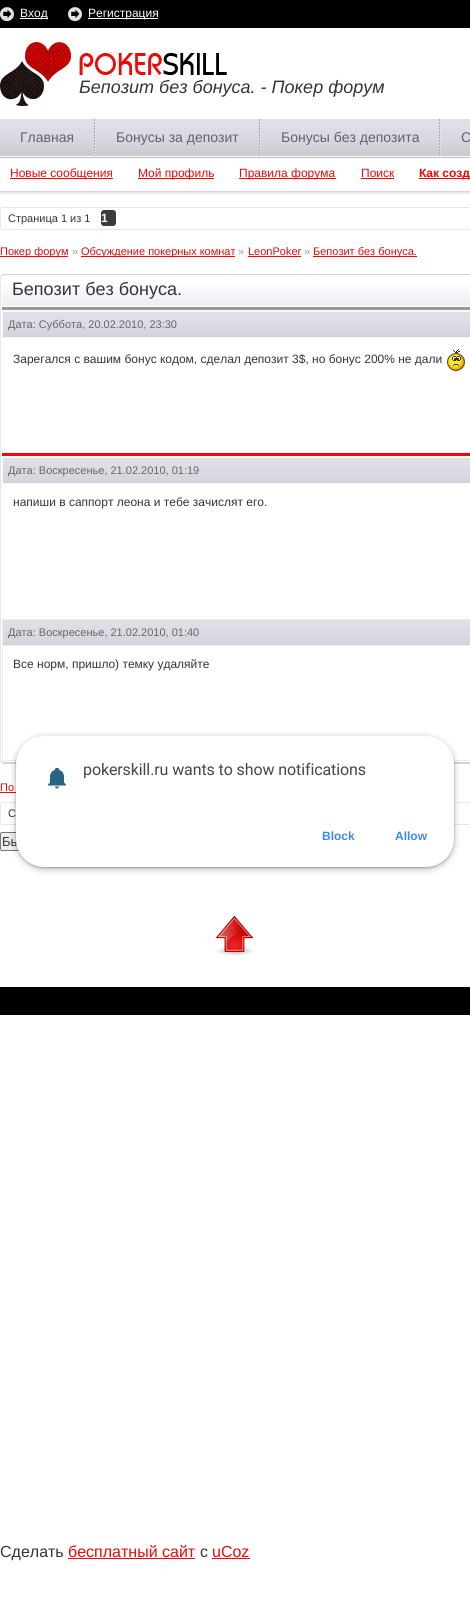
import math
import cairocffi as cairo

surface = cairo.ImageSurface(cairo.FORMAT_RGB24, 470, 1602)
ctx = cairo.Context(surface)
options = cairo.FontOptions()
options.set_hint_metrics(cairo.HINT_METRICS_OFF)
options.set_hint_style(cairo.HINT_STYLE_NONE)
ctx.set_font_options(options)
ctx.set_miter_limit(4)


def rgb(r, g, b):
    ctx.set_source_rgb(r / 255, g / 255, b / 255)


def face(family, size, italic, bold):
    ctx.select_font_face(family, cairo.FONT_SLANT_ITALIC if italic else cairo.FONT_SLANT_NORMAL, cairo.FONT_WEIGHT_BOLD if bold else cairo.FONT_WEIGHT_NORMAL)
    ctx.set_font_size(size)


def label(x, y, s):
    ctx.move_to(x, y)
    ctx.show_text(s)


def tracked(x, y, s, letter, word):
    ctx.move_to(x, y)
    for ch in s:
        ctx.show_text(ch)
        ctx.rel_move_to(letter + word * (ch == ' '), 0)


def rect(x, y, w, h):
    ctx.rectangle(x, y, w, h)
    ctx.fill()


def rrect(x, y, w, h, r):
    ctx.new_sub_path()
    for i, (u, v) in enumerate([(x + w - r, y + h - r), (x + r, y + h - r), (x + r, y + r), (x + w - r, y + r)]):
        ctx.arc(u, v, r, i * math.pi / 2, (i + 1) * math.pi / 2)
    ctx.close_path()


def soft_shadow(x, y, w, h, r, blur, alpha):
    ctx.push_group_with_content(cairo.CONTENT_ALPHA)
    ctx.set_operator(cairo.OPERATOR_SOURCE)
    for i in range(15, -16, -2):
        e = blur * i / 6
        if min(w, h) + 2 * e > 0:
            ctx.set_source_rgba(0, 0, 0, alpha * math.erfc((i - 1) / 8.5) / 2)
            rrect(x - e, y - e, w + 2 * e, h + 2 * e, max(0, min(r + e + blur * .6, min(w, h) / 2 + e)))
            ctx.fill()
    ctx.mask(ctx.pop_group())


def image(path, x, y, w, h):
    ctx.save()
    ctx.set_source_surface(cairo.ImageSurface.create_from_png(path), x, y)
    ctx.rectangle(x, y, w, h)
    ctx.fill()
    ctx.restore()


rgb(255, 255, 255)
ctx.paint()
rgb(0, 0, 0)
rect(0, 0, 470, 28)
image('image0.png', 0, 7, 14, 14)
rgb(255, 255, 255)
rect(20, 18, 28, 1)
face('Liberation Sans', 12, 0, 0)
label(20, 17, 'Вход')
image('image0.png', 68, 7, 14, 14)
rect(88, 18, 70, 1)
label(88, 17, 'Регистрация')
image('image1.png', 0, 42, 227, 64)
face('Liberation Sans', 18, 1, 0)
rgb(53, 53, 53)
label(79, 93, 'Бепозит без бонуса. - Покер форум')
image('image2.png', 0, 119, 470, 39)
image('image3.png', 94, 119, 2, 37)
face('Liberation Sans', 14, 0, 0)
rgb(95, 98, 115)
label(20, 142, 'Главная')
image('image3.png', 259, 119, 2, 37)
label(116, 142, 'Бонусы за депозит')
image('image3.png', 439, 119, 2, 37)
label(281, 142, 'Бонусы без депозита')
label(461, 142, 'С')
rgb(240, 8, 7)
rect(10, 178, 103, 1)
face('Liberation Sans', 12, 0, 0)
label(10, 177, 'Новые сообщения')
rect(138, 178, 76, 1)
label(138, 177, 'Мой профиль')
rect(239, 178, 97, 1)
label(239, 177, 'Правила форума')
label(361, 177, 'Поиск')
rect(361, 178, 33, 1)
rect(419, 178, 51, 1)
face('Liberation Sans', 12, 0, 1)
label(419, 177, 'Как созд')
image('image4.png', 0, 191, 470, 4)
rrect(0.5, 207.5, 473, 22, 2.5)
rgb(231, 231, 231)
ctx.set_line_width(1)
ctx.stroke()
face('Liberation Sans', 11, 0, 0)
rgb(53, 53, 53)
label(8, 222, 'Страница 1 из 1')
rgb(59, 60, 59)
rrect(101, 210, 15, 16, 3)
ctx.fill()
face('Liberation Sans', 12, 0, 1)
rgb(255, 255, 255)
label(101, 222, '1')
rgb(240, 8, 7)
rect(0, 256, 68, 1)
face('Liberation Sans', 11, 0, 0)
label(0, 255, 'Покер форум')
rgb(153, 153, 153)
label(72, 255, '»')
rgb(240, 8, 7)
rect(81, 256, 154, 1)
label(81, 255, 'Обсуждение покерных комнат')
rgb(153, 153, 153)
label(238, 255, '»')
rgb(240, 8, 7)
label(248, 255, 'LeonPoker')
rect(248, 256, 53, 1)
rgb(153, 153, 153)
label(304, 255, '»')
rgb(240, 8, 7)
rect(313, 256, 104, 1)
label(313, 255, 'Бепозит без бонуса.')
rgb(213, 213, 213)
ctx.new_path()
ctx.move_to(5, 274)
ctx.curve_to(4, 274, 2, 274, 1, 275)
ctx.line_to(2, 276)
ctx.line_to(5, 275)
ctx.line_to(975, 275)
ctx.line_to(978, 276)
ctx.line_to(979, 275)
ctx.curve_to(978, 274, 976, 274, 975, 274)
ctx.close_path()
ctx.fill()
ctx.new_path()
ctx.move_to(5, 764)
ctx.line_to(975, 764)
ctx.curve_to(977, 764, 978, 763, 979, 762)
ctx.line_to(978, 761)
ctx.curve_to(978, 762, 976, 762, 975, 762)
ctx.line_to(5, 762)
ctx.curve_to(4, 762, 2, 762, 2, 761)
ctx.line_to(1, 762)
ctx.curve_to(2, 763, 3, 764, 5, 764)
ctx.close_path()
ctx.fill()
rgb(231, 231, 231)
ctx.new_path()
ctx.move_to(0, 279)
ctx.line_to(0, 759)
ctx.line_to(1, 762)
ctx.line_to(2, 761)
ctx.line_to(1, 759)
ctx.line_to(1, 279)
ctx.line_to(2, 276)
ctx.line_to(1, 275)
ctx.curve_to(0, 276, 0, 278, 0, 279)
ctx.close_path()
ctx.fill()
image('image5.png', 2, 286, 468, 20)
face('Liberation Sans', 18, 0, 0)
rgb(53, 53, 53)
label(12, 295, 'Бепозит без бонуса.')
rgb(153, 153, 153)
rect(2, 307, 468, 3)
rgb(245, 249, 253)
rect(2, 311, 468, 142)
rgb(240, 8, 7)
rect(2, 453, 468, 3)
image('image6.png', 3, 312, 467, 25)
face('Liberation Sans', 11, 0, 0)
rgb(102, 102, 102)
label(8, 328, 'Дата: Суббота, 20.02.2010, 23:30')
rgb(255, 255, 255)
rect(3, 338, 467, 114)
face('Liberation Sans', 12, 0, 0)
rgb(53, 53, 53)
label(13, 363, 'Зарегался с вашим бонус кодом, сделал депозит 3$, но бонус 200% не дали')
image('image7.png', 447, 349, 18, 22)
rgb(245, 249, 253)
rect(2, 457, 468, 161)
image('image6.png', 3, 458, 467, 25)
face('Liberation Sans', 11, 0, 0)
rgb(102, 102, 102)
label(8, 474, 'Дата: Воскресенье, 21.02.2010, 01:19')
rgb(255, 255, 255)
rect(3, 484, 467, 133)
face('Liberation Sans', 12, 0, 0)
rgb(53, 53, 53)
label(13, 506, 'напиши в саппорт леона и тебе зачислят его.')
rgb(238, 238, 238)
rect(2, 619, 468, 142)
image('image6.png', 3, 620, 467, 25)
face('Liberation Sans', 11, 0, 0)
rgb(102, 102, 102)
label(8, 636, 'Дата: Воскресенье, 21.02.2010, 01:40')
rgb(255, 255, 255)
rect(3, 646, 467, 114)
face('Liberation Sans', 12, 0, 0)
rgb(53, 53, 53)
label(13, 668, 'Все норм, пришло) темку удаляйте')
face('Liberation Sans', 11, 0, 0)
rgb(240, 8, 7)
label(0, 791, 'По')
rect(0, 792, 16, 1)
rrect(0.5, 802.5, 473, 22, 2.5)
rgb(231, 231, 231)
ctx.stroke()
rgb(53, 53, 53)
label(8, 817, 'С')
rgb(239, 239, 239)
rrect(0.5, 832.5, 91, 18, 1.5)
ctx.fill_preserve()
rgb(118, 118, 118)
ctx.stroke()
face('Liberation Sans', 13, 0, 0)
rgb(53, 53, 53)
label(2, 846, 'Бы')
image('image8.png', 216, 916, 37, 40)
rgb(0, 0, 0)
rect(0, 987, 470, 28)
rgb(0, 0, 0)
soft_shadow(14, 736, 442, 135, 30, 3, 0.15)
soft_shadow(16, 737, 438, 131, 28, 1, 0.3)
rgb(255, 255, 255)
rrect(16, 736, 438, 131, 28)
ctx.fill()
image('image9.png', 48, 768, 18, 21)
face('Roboto', 16, 0, 0)
rgb(67, 71, 73)
tracked(83, 775, 'pokerskill.ru wants to show notifications', -0.1, 0)
face('Liberation Sans', 12, 0, 1)
rgb(64, 137, 232)
label(322, 840, 'Block')
label(395, 840, 'Allow')
face('Liberation Sans', 16, 0, 0)
rgb(53, 53, 53)
label(0, 1557, 'Сделать')
rgb(240, 8, 7)
label(68, 1557, 'бесплатный сайт')
rect(68, 1558, 127, 1)
rgb(53, 53, 53)
label(200, 1557, 'с')
rgb(240, 8, 7)
label(212, 1557, 'uCoz')
rect(212, 1558, 38, 1)
surface.write_to_png('render.png')
